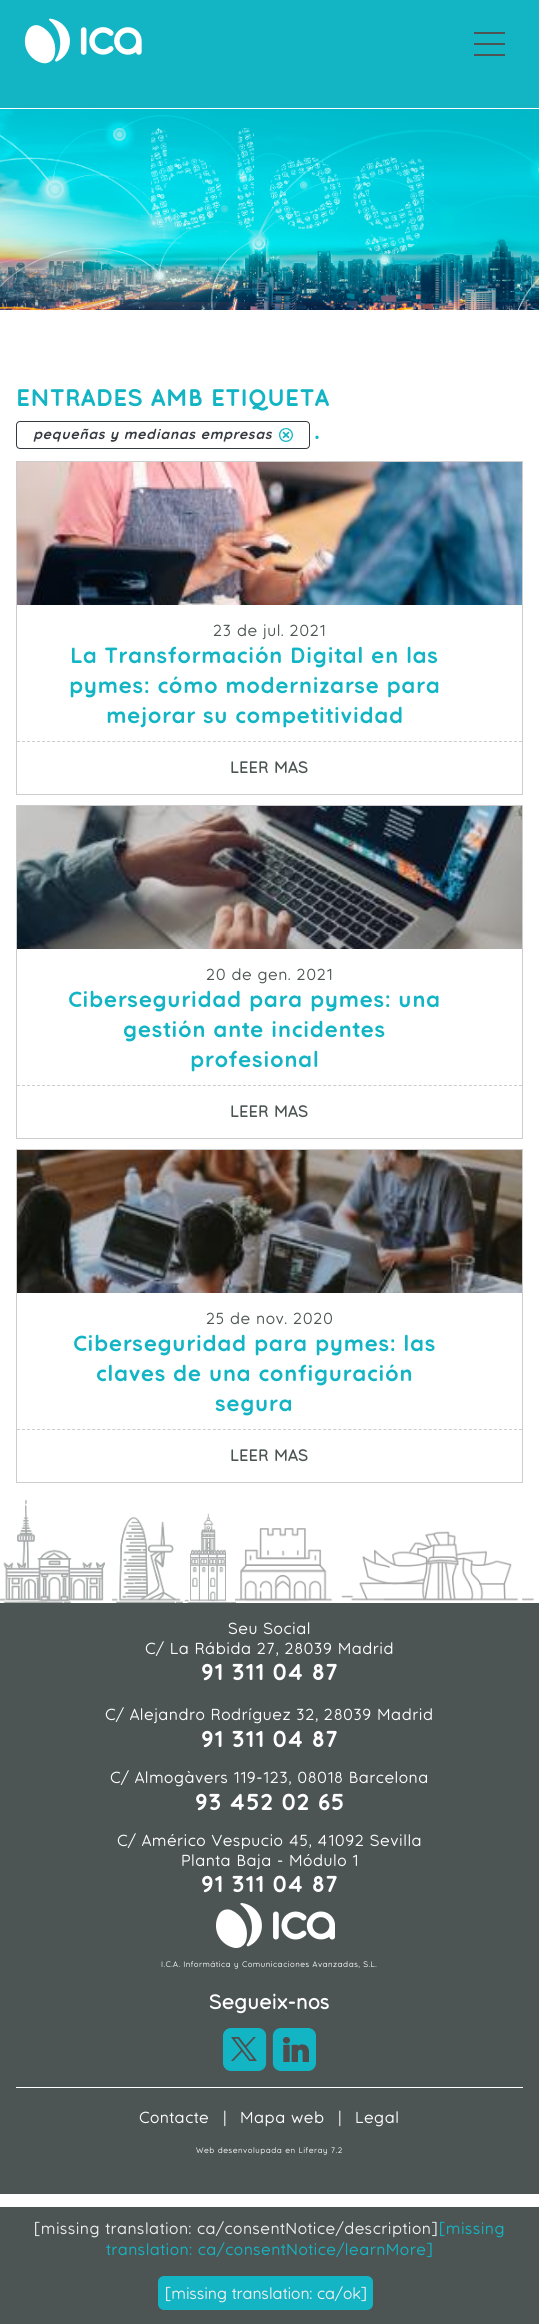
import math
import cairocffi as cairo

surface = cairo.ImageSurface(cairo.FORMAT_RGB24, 539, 2324)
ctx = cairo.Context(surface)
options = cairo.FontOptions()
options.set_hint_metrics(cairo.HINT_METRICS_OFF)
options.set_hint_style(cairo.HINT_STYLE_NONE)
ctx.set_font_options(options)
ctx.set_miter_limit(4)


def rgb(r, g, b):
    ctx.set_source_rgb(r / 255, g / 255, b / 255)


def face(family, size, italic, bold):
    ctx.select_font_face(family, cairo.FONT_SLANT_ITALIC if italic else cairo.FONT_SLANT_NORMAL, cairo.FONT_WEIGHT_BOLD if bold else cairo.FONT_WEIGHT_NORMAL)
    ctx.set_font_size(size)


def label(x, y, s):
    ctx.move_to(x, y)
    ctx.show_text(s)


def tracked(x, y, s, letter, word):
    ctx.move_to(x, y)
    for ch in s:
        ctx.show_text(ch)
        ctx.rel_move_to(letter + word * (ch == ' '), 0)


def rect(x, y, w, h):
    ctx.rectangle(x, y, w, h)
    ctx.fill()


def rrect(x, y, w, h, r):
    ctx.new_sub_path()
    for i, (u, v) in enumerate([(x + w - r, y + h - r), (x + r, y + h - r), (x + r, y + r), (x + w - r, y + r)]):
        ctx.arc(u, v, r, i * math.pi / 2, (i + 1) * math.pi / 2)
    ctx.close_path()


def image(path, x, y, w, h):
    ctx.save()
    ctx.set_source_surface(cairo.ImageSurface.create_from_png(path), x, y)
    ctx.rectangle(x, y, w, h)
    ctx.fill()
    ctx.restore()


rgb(255, 255, 255)
ctx.paint()
rgb(19, 181, 196)
rect(0, 0, 539, 108)
image('image0.png', 24, 18, 118, 46)
image('image1.png', 474, 32, 31, 24)
image('image2.png', 0, 109, 539, 201)
face('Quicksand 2', 24, 0, 1)
tracked(16, 406, 'ENTRADES AMB ETIQUETA', 0.5, 0)
rrect(16.5, 421.5, 293, 27, 3.5)
rgb(52, 58, 64)
ctx.set_line_width(1)
ctx.stroke()
face('Quicksand', 14, 1, 1)
tracked(33, 439, 'pequeñas y medianas empresas', 0.5, 0)
image('image3.png', 279, 428, 14, 14)
face('Quicksand 2', 24, 0, 1)
rgb(19, 181, 196)
tracked(314, 439, '.', 0.5, 0)
ctx.rectangle(16.5, 461.5, 506, 333)
rgb(204, 204, 204)
ctx.stroke()
image('image4.png', 17, 462, 505, 143)
face('Quicksand', 16, 0, 0)
rgb(77, 85, 84)
tracked(213, 636, '23 de jul. 2021', 0.5, 0)
face('Quicksand 2', 22, 0, 1)
rgb(19, 181, 196)
tracked(70, 663, 'La Transformación Digital en las', 0.5, 0)
tracked(69, 693, 'pymes: cómo modernizarse para', 0.5, 0)
tracked(106, 723, 'mejorar su competitividad', 0.5, 0)
ctx.new_path()
ctx.move_to(17, 741.5)
ctx.line_to(522, 741.5)
rgb(204, 204, 204)
ctx.set_dash([3, 2.02])
ctx.stroke()
face('Quicksand', 16, 0, 1)
rgb(77, 85, 84)
tracked(230, 773, 'LEER MAS', 0.5, 0)
ctx.rectangle(16.5, 805.5, 506, 333)
rgb(204, 204, 204)
ctx.set_dash([])
ctx.stroke()
image('image5.png', 17, 806, 505, 143)
face('Quicksand', 16, 0, 0)
rgb(77, 85, 84)
tracked(206, 980, '20 de gen. 2021', 0.5, 0)
face('Quicksand 2', 22, 0, 1)
rgb(19, 181, 196)
tracked(68, 1007, 'Ciberseguridad para pymes: una', 0.5, 0)
tracked(123, 1037, 'gestión ante incidentes', 0.5, 0)
tracked(190, 1067, 'profesional', 0.5, 0)
ctx.new_path()
ctx.move_to(17, 1085.5)
ctx.line_to(522, 1085.5)
rgb(204, 204, 204)
ctx.set_dash([3, 2.02])
ctx.stroke()
face('Quicksand', 16, 0, 1)
rgb(77, 85, 84)
tracked(230, 1117, 'LEER MAS', 0.5, 0)
ctx.rectangle(16.5, 1149.5, 506, 333)
rgb(204, 204, 204)
ctx.set_dash([])
ctx.stroke()
image('image6.png', 17, 1150, 505, 143)
face('Quicksand', 16, 0, 0)
rgb(77, 85, 84)
tracked(206, 1324, '25 de nov. 2020', 0.5, 0)
face('Quicksand 2', 22, 0, 1)
rgb(19, 181, 196)
tracked(73, 1351, 'Ciberseguridad para pymes: las', 0.5, 0)
tracked(96, 1381, 'claves de una configuración', 0.5, 0)
tracked(215, 1411, 'segura', 0.5, 0)
ctx.new_path()
ctx.move_to(17, 1429.5)
ctx.line_to(522, 1429.5)
rgb(204, 204, 204)
ctx.set_dash([3, 2.02])
ctx.stroke()
face('Quicksand', 16, 0, 1)
rgb(77, 85, 84)
tracked(230, 1461, 'LEER MAS', 0.5, 0)
image('image7.png', 0, 1500, 534, 103)
rect(0, 1603, 539, 591)
face('Quicksand', 16, 0, 0)
rgb(255, 255, 255)
tracked(228, 1634, 'Seu Social', 0.5, 0)
tracked(145, 1654, 'C/ La Rábida 27, 28039 Madrid', 0.5, 0)
face('Quicksand 2', 23, 0, 1)
tracked(201, 1680, '91 311 04 87', 0.5, 0)
face('Quicksand', 16, 0, 0)
tracked(105, 1720, 'C/ Alejandro Rodríguez 32, 28039 Madrid', 0.5, 0)
face('Quicksand 2', 23, 0, 1)
tracked(201, 1747, '91 311 04 87', 0.5, 0)
face('Quicksand', 16, 0, 0)
tracked(110, 1783, 'C/ Almogàvers 119-123, 08018 Barcelona', 0.5, 0)
face('Quicksand 2', 23, 0, 1)
tracked(195, 1810, '93 452 02 65', 0.5, 0)
face('Quicksand', 16, 0, 0)
tracked(117, 1846, 'C/ Américo Vespucio 45, 41092 Sevilla', 0.5, 0)
tracked(181, 1866, 'Planta Baja - Módulo 1', 0.5, 0)
face('Quicksand 2', 23, 0, 1)
tracked(201, 1892, '91 311 04 87', 0.5, 0)
image('image8.png', 216, 1903, 119, 45)
face('Quicksand', 8, 0, 0)
tracked(161, 1967, 'I.C.A. Informática y Comunicaciones Avanzadas, S.L.', 0.5, 0)
face('Quicksand', 20, 0, 1)
tracked(209, 2009, 'Segueix-nos', 0.5, 0)
image('image9.png', 223, 2028, 44, 43)
image('image10.png', 272, 2028, 44, 43)
rect(16, 2087, 507, 1)
face('Quicksand', 16, 0, 0)
tracked(139, 2123, 'Contacte', 0.5, 0)
tracked(223, 2123, '|', 0.5, 0)
tracked(240, 2123, 'Mapa web', 0.5, 0)
tracked(338, 2123, '|', 0.5, 0)
tracked(355, 2123, 'Legal', 0.5, 0)
face('Quicksand', 8, 0, 0)
tracked(196, 2153, 'Web desenvolupada en Liferay 7.2', 0.5, 0)
rgb(77, 85, 84)
rect(0, 2207, 539, 117)
face('Quicksand', 16, 0, 0)
rgb(238, 238, 238)
tracked(34, 2234, '[missing translation: ca/consentNotice/description]', 0.5, 0)
rgb(19, 181, 196)
tracked(439, 2234, '[missing', 0.5, 0)
tracked(106, 2255, 'translation: ca/consentNotice/learnMore]', 0.5, 0)
rrect(158, 2276, 215, 34, 6)
ctx.fill()
rgb(238, 238, 238)
label(165, 2299, '[missing translation: ca/ok]')
surface.write_to_png('render.png')
